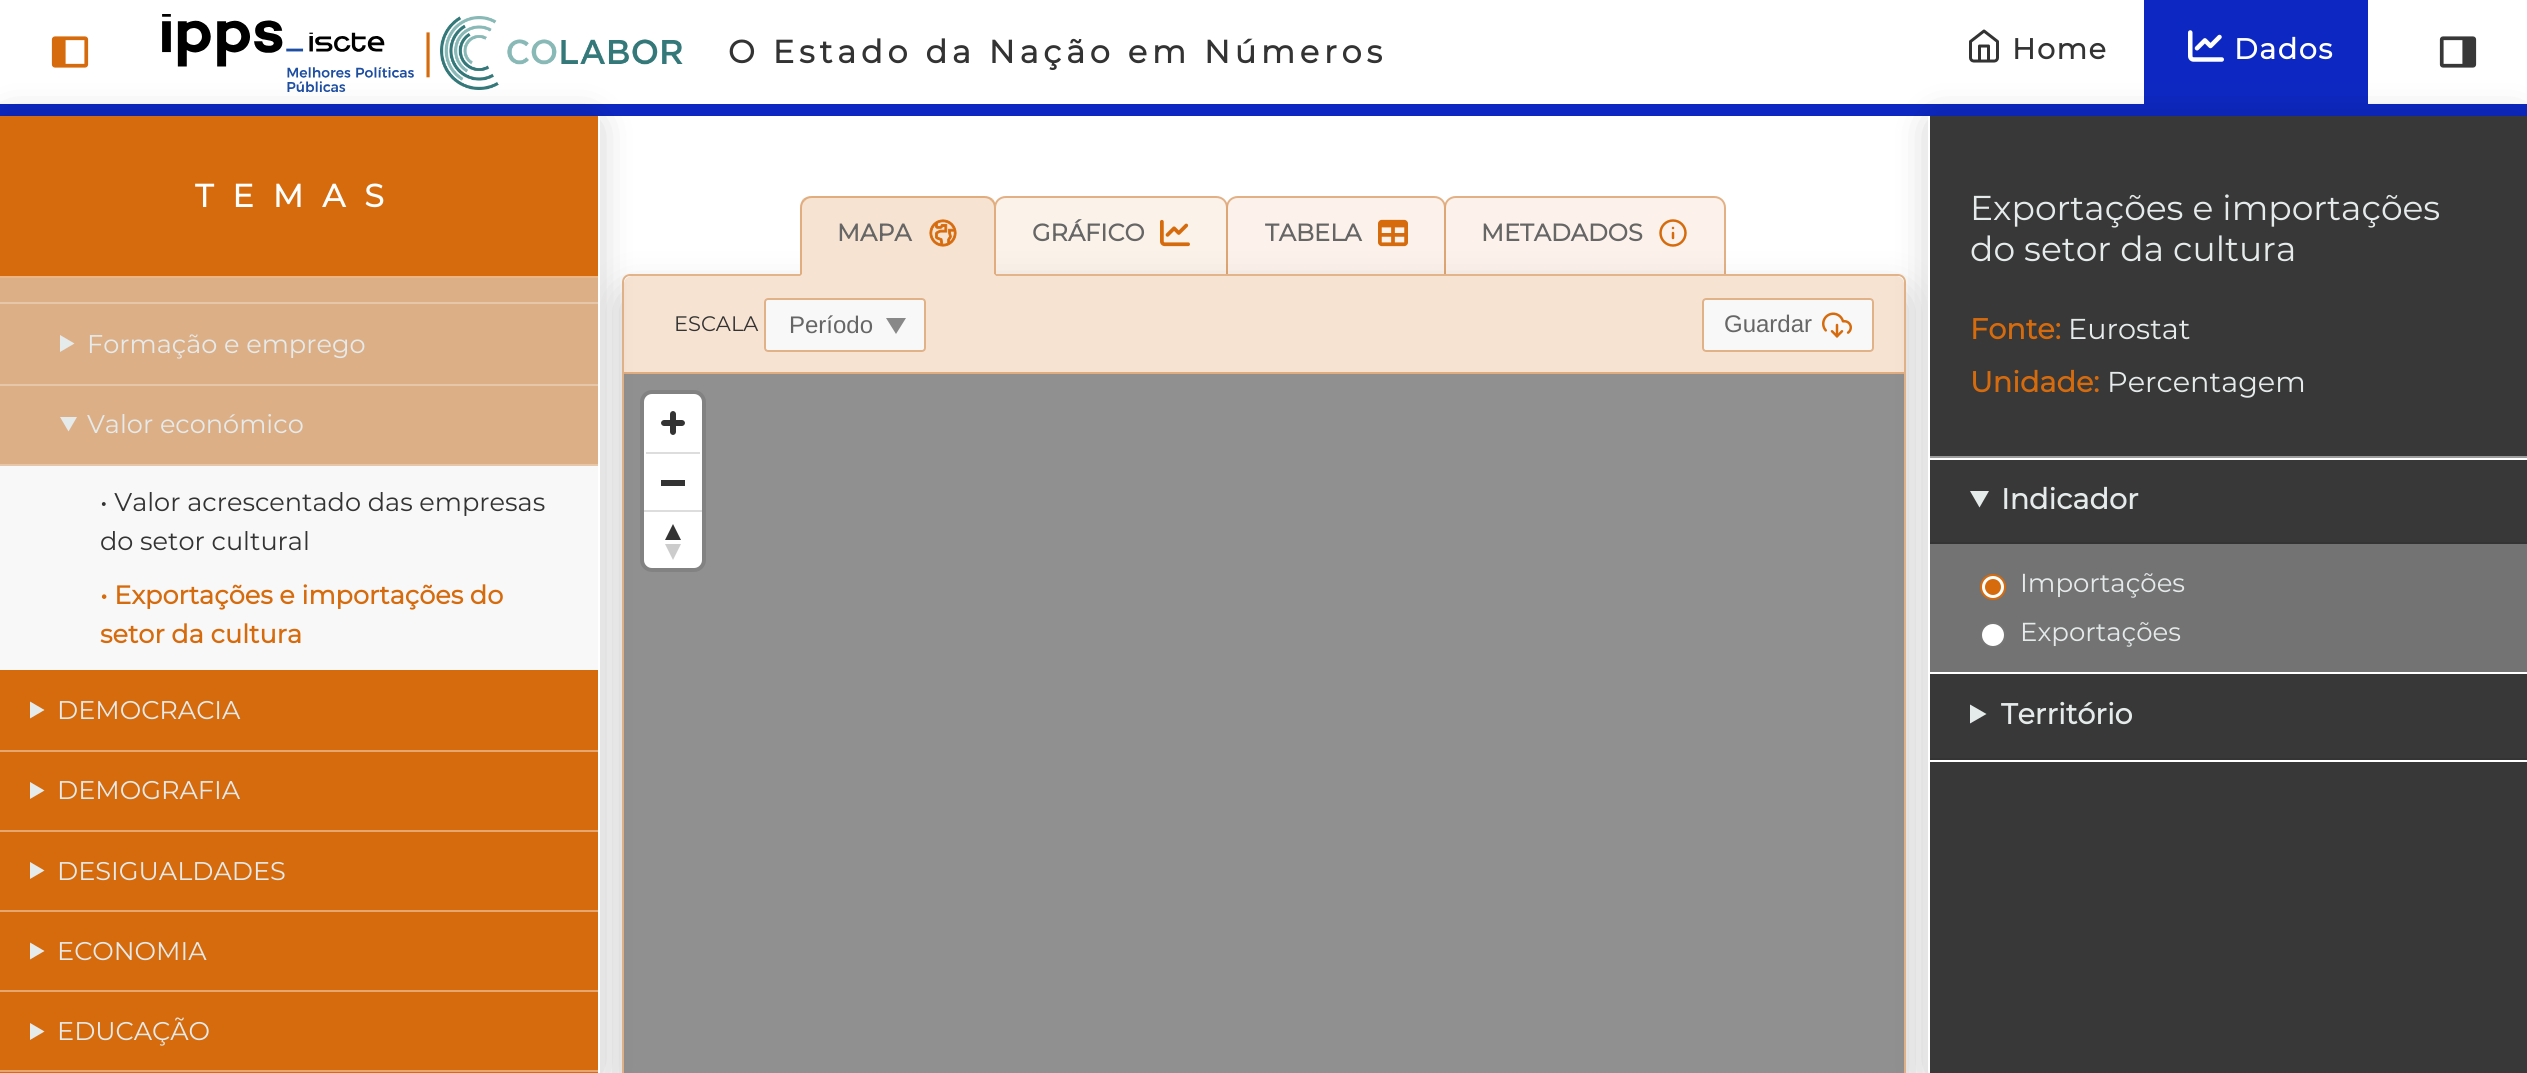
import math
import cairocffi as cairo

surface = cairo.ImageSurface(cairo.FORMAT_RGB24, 2527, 1073)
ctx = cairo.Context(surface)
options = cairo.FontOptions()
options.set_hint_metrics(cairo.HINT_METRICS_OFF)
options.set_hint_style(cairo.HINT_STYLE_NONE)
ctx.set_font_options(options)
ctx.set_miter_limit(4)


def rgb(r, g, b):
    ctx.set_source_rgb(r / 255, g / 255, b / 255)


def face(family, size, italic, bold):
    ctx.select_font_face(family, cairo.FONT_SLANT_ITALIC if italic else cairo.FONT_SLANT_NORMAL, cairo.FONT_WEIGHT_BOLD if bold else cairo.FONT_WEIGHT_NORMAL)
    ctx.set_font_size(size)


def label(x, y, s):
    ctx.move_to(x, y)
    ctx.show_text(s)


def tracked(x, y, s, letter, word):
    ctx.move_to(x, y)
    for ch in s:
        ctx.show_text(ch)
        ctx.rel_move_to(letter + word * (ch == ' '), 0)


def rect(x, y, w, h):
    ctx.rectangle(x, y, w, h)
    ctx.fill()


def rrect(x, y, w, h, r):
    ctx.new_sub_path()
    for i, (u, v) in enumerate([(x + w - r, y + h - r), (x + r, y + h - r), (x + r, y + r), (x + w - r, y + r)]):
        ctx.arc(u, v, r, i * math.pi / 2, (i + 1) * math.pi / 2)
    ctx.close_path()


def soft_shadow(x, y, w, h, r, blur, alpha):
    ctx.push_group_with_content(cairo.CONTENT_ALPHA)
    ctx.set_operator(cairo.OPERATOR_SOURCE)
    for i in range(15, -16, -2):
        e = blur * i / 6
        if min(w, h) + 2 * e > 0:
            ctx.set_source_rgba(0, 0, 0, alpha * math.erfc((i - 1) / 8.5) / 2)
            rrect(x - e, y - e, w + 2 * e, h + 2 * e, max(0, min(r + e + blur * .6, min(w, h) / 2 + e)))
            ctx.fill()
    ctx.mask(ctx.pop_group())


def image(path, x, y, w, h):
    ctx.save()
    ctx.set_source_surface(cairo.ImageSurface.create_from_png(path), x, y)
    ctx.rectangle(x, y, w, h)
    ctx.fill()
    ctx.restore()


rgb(255, 255, 255)
ctx.paint()
rgb(13, 40, 194)
rect(0, 104, 2527, 12)
image('image0.png', 51, 36, 38, 32)
image('image1.png', 162, 14, 252, 78)
face('Montserrat Thin', 48, 0, 0)
rgb(214, 107, 13)
label(421, 68, '|')
image('image2.png', 440, 16, 243, 74)
face('Montserrat', 32, 0, 1)
rgb(51, 51, 51)
tracked(728, 63, 'O Estado da Nação em Números', 4.8, 0)
ctx.new_path()
ctx.move_to(1970.5, 41.5)
ctx.line_to(1984, 31)
ctx.line_to(1997.5, 41.5)
ctx.line_to(1997.5, 58)
ctx.curve_to(1997.5, 59.5, 1996, 61, 1994.5, 61)
ctx.line_to(1973.5, 61)
ctx.curve_to(1972, 61, 1970.5, 59.5, 1970.5, 58)
ctx.close_path()
ctx.move_to(1979.5, 61)
ctx.line_to(1979.5, 46)
ctx.line_to(1988.5, 46)
ctx.line_to(1988.5, 61)
ctx.set_line_width(3)
ctx.set_line_cap(cairo.LINE_CAP_ROUND)
ctx.set_line_join(cairo.LINE_JOIN_ROUND)
ctx.stroke()
face('Montserrat', 28.75, 0, 1)
tracked(2012, 59, 'Home', 1.5, 0)
rgb(13, 40, 194)
rect(2144, 0, 224, 104)
image('image3.png', 2188, 30, 36, 32)
rgb(255, 255, 255)
tracked(2234, 59, 'Dados', 1.5, 0)
image('image4.png', 2439, 36, 38, 32)
rgb(251, 242, 234)
ctx.new_path()
ctx.move_to(1006, 196)
ctx.line_to(1216, 196)
ctx.curve_to(1222.5, 196, 1228, 201.5, 1228, 208)
ctx.line_to(1228, 274)
ctx.line_to(994, 274)
ctx.line_to(994, 208)
ctx.curve_to(994, 201.5, 999.5, 196, 1006, 196)
ctx.close_path()
ctx.fill()
ctx.set_source_rgba(0.855, 0.608, 0.392, 0.76)
ctx.set_fill_rule(cairo.FILL_RULE_EVEN_ODD)
ctx.new_path()
ctx.move_to(1006, 196)
ctx.line_to(1216, 196)
ctx.curve_to(1223, 196, 1228, 201, 1228, 208)
ctx.line_to(1228, 274)
ctx.line_to(994, 274)
ctx.line_to(994, 208)
ctx.curve_to(994, 201, 999, 196, 1006, 196)
ctx.close_path()
ctx.move_to(1006, 198)
ctx.line_to(1216, 198)
ctx.curve_to(1222, 198, 1226, 202, 1226, 208)
ctx.line_to(1226, 274)
ctx.line_to(996, 274)
ctx.line_to(996, 208)
ctx.curve_to(996, 202, 1000, 198, 1006, 198)
ctx.close_path()
ctx.fill()
image('image6.png', 1160, 219, 30, 28)
ctx.set_source_rgba(0.969, 0.89, 0.824, 0.46)
ctx.new_path()
ctx.move_to(1238, 196)
ctx.line_to(1434, 196)
ctx.curve_to(1440.5, 196, 1446, 201.5, 1446, 208)
ctx.line_to(1446, 274)
ctx.line_to(1226, 274)
ctx.line_to(1226, 208)
ctx.curve_to(1226, 201.5, 1231.5, 196, 1238, 196)
ctx.close_path()
ctx.fill()
ctx.set_source_rgba(0.855, 0.608, 0.392, 0.76)
ctx.new_path()
ctx.move_to(1238, 196)
ctx.line_to(1434, 196)
ctx.curve_to(1441, 196, 1446, 201, 1446, 208)
ctx.line_to(1446, 274)
ctx.line_to(1226, 274)
ctx.line_to(1226, 208)
ctx.curve_to(1226, 201, 1231, 196, 1238, 196)
ctx.close_path()
ctx.move_to(1238, 198)
ctx.line_to(1434, 198)
ctx.curve_to(1440, 198, 1444, 202, 1444, 208)
ctx.line_to(1444, 274)
ctx.line_to(1228, 274)
ctx.line_to(1228, 208)
ctx.curve_to(1228, 202, 1232, 198, 1238, 198)
ctx.close_path()
ctx.fill()
image('image7.png', 1378, 219, 30, 28)
ctx.set_source_rgba(0.969, 0.89, 0.824, 0.46)
ctx.new_path()
ctx.move_to(1456, 196)
ctx.line_to(1714, 196)
ctx.curve_to(1720.5, 196, 1726, 201.5, 1726, 208)
ctx.line_to(1726, 274)
ctx.line_to(1444, 274)
ctx.line_to(1444, 208)
ctx.curve_to(1444, 201.5, 1449.5, 196, 1456, 196)
ctx.close_path()
ctx.fill()
ctx.set_source_rgba(0.855, 0.608, 0.392, 0.76)
ctx.new_path()
ctx.move_to(1456, 196)
ctx.line_to(1714, 196)
ctx.curve_to(1721, 196, 1726, 201, 1726, 208)
ctx.line_to(1726, 274)
ctx.line_to(1444, 274)
ctx.line_to(1444, 208)
ctx.curve_to(1444, 201, 1449, 196, 1456, 196)
ctx.close_path()
ctx.move_to(1456, 198)
ctx.line_to(1714, 198)
ctx.curve_to(1720, 198, 1724, 202, 1724, 208)
ctx.line_to(1724, 274)
ctx.line_to(1446, 274)
ctx.line_to(1446, 208)
ctx.curve_to(1446, 202, 1450, 198, 1456, 198)
ctx.close_path()
ctx.fill()
ctx.arc(1673, 233, 12.5, 0, 2 * math.pi)
rgb(214, 107, 13)
ctx.set_line_width(2.5)
ctx.set_line_cap(cairo.LINE_CAP_BUTT)
ctx.set_line_join(cairo.LINE_JOIN_MITER)
ctx.stroke()
ctx.new_path()
ctx.move_to(1673, 238)
ctx.line_to(1673, 233)
ctx.move_to(1673, 228)
ctx.line_to(1673, 228)
ctx.set_line_cap(cairo.LINE_CAP_ROUND)
ctx.set_line_join(cairo.LINE_JOIN_ROUND)
ctx.stroke()
ctx.save()
ctx.new_path()
ctx.move_to(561, 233)
ctx.line_to(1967, 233)
ctx.line_to(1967, 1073)
ctx.line_to(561, 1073)
ctx.close_path()
ctx.move_to(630, 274)
ctx.line_to(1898, 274)
ctx.curve_to(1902.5, 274, 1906, 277.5, 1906, 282)
ctx.line_to(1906, 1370)
ctx.curve_to(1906, 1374.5, 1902.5, 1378, 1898, 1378)
ctx.line_to(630, 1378)
ctx.curve_to(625.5, 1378, 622, 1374.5, 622, 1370)
ctx.line_to(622, 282)
ctx.curve_to(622, 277.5, 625.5, 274, 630, 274)
ctx.close_path()
ctx.clip()
rgb(0, 0, 0)
soft_shadow(622, 294, 1284, 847, 8, 20, 0.2)
ctx.restore()
rrect(623, 275, 1282, 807, 7)
ctx.set_source_rgba(0.855, 0.608, 0.392, 0.76)
ctx.set_line_width(2)
ctx.set_line_cap(cairo.LINE_CAP_BUTT)
ctx.set_line_join(cairo.LINE_JOIN_MITER)
ctx.stroke()
rgb(247, 227, 210)
ctx.new_path()
ctx.move_to(632, 276)
ctx.line_to(1896, 276)
ctx.curve_to(1900.5, 276, 1904, 279.5, 1904, 284)
ctx.line_to(1904, 374)
ctx.line_to(624, 374)
ctx.line_to(624, 284)
ctx.curve_to(624, 279.5, 627.5, 276, 632, 276)
ctx.close_path()
ctx.fill()
rgb(225, 172, 126)
rect(624, 372, 1280, 2)
rgb(144, 144, 144)
rect(624, 374, 1280, 699)
rrect(642, 392, 62, 178, 10)
rgb(130, 130, 130)
ctx.set_line_width(4)
ctx.stroke()
rgb(255, 255, 255)
rrect(644, 394, 58, 174, 8)
ctx.fill()
rgb(221, 221, 221)
rect(646, 452, 54, 2)
rect(644, 510, 58, 2)
rgb(0, 0, 0)
soft_shadow(10, 126, 580, 944, 0, 20, 0.3)
rgb(214, 107, 13)
rect(0, 116, 598, 957)
rgb(255, 255, 255)
rect(598, 116, 2, 957)
rgb(235, 181, 134)
rect(0, 276, 598, 2)
face('Montserrat', 32, 0, 1)
rgb(255, 255, 255)
tracked(195, 207, 'TEMAS', 19, 0)
rgb(220, 175, 134)
rect(0, 278, 598, 24)
rgb(231, 199, 170)
rect(0, 302, 598, 2)
rgb(220, 175, 134)
rect(0, 304, 598, 80)
rgb(231, 199, 170)
rect(0, 384, 598, 2)
rgb(229, 234, 235)
ctx.set_fill_rule(cairo.FILL_RULE_WINDING)
ctx.new_path()
ctx.move_to(60, 335)
ctx.line_to(74.5, 343.5)
ctx.line_to(60, 352)
ctx.close_path()
ctx.fill()
face('Montserrat Thin', 25.6, 0, 0)
label(87, 353, 'Formação e emprego')
rgb(220, 175, 134)
rect(0, 386, 598, 78)
rgb(231, 199, 170)
rect(0, 464, 598, 2)
rgb(229, 234, 235)
ctx.new_path()
ctx.move_to(60, 417)
ctx.line_to(77, 417)
ctx.line_to(68.5, 431.5)
ctx.close_path()
ctx.fill()
label(87, 433, 'Valor económico')
rgb(248, 248, 248)
rect(0, 466, 598, 204)
rgb(51, 51, 51)
label(100, 511, '• Valor acrescentado das empresas')
label(100, 550, 'do setor cultural')
face('Montserrat', 25.6, 0, 1)
rgb(214, 107, 13)
label(100, 604, '• Exportações e importações do')
label(100, 643, 'setor da cultura')
rgb(230, 166, 110)
rect(0, 750, 598, 2)
rgb(229, 234, 235)
ctx.new_path()
ctx.move_to(30, 701.5)
ctx.line_to(44.5, 710)
ctx.line_to(30, 718.5)
ctx.close_path()
ctx.fill()
face('Montserrat Thin', 25.6, 0, 0)
label(57, 719, 'DEMOCRACIA')
rgb(230, 166, 110)
rect(0, 830, 598, 2)
rgb(229, 234, 235)
ctx.new_path()
ctx.move_to(30, 782)
ctx.line_to(44.5, 790.5)
ctx.line_to(30, 799)
ctx.close_path()
ctx.fill()
label(57, 799, 'DEMOGRAFIA')
rgb(230, 166, 110)
rect(0, 910, 598, 2)
rgb(229, 234, 235)
ctx.new_path()
ctx.move_to(30, 862)
ctx.line_to(44.5, 870.5)
ctx.line_to(30, 879)
ctx.close_path()
ctx.fill()
label(57, 880, 'DESIGUALDADES')
rgb(230, 166, 110)
rect(0, 990, 598, 2)
rgb(229, 234, 235)
ctx.new_path()
ctx.move_to(30, 942.5)
ctx.line_to(44.5, 951)
ctx.line_to(30, 959.5)
ctx.close_path()
ctx.fill()
label(57, 960, 'ECONOMIA')
rgb(230, 166, 110)
rect(0, 1070, 598, 2)
rgb(229, 234, 235)
ctx.new_path()
ctx.move_to(30, 1023)
ctx.line_to(44.5, 1031.5)
ctx.line_to(30, 1040)
ctx.close_path()
ctx.fill()
label(57, 1040, 'EDUCAÇÃO')
rgb(247, 227, 210)
ctx.new_path()
ctx.move_to(812, 196)
ctx.line_to(984, 196)
ctx.curve_to(990.5, 196, 996, 201.5, 996, 208)
ctx.line_to(996, 276)
ctx.line_to(800, 276)
ctx.line_to(800, 208)
ctx.curve_to(800, 201.5, 805.5, 196, 812, 196)
ctx.close_path()
ctx.fill()
ctx.set_source_rgba(0.855, 0.608, 0.392, 0.76)
ctx.new_path()
ctx.move_to(812, 196)
ctx.curve_to(808, 196, 806, 197, 803, 199)
ctx.line_to(805, 201)
ctx.curve_to(806, 199, 809, 198, 812, 198)
ctx.line_to(984, 198)
ctx.curve_to(987, 198, 990, 199, 991, 201)
ctx.line_to(993, 199)
ctx.curve_to(990, 197, 988, 196, 984, 196)
ctx.close_path()
ctx.fill()
ctx.new_path()
ctx.move_to(996, 276)
ctx.line_to(996, 208)
ctx.curve_to(996, 204, 995, 202, 993, 199)
ctx.line_to(991, 201)
ctx.curve_to(993, 202, 994, 205, 994, 208)
ctx.line_to(994, 274)
ctx.close_path()
ctx.fill()
rgb(247, 227, 210)
ctx.new_path()
ctx.move_to(996, 276)
ctx.line_to(994, 274)
ctx.line_to(802, 274)
ctx.line_to(800, 276)
ctx.close_path()
ctx.fill()
ctx.set_source_rgba(0.855, 0.608, 0.392, 0.76)
ctx.new_path()
ctx.move_to(800, 276)
ctx.line_to(802, 274)
ctx.line_to(802, 208)
ctx.curve_to(802, 205, 803, 202, 805, 201)
ctx.line_to(803, 199)
ctx.curve_to(801, 202, 800, 204, 800, 208)
ctx.close_path()
ctx.fill()
face('Montserrat', 24, 0, 1)
rgb(102, 102, 102)
label(837, 241, 'MAPA')
image('image5.png', 929, 219, 28, 28)
label(1032, 241, 'GRÁFICO')
label(1265, 241, 'TABELA')
label(1481, 241, 'METADADOS')
face('Montserrat Thin', 21, 0, 0)
rgb(51, 51, 51)
label(674, 331, 'ESCALA')
rgb(248, 248, 248)
rrect(764, 298, 162, 54, 4)
ctx.fill()
rgb(136, 136, 136)
ctx.new_path()
ctx.move_to(886, 318)
ctx.line_to(906, 318)
ctx.line_to(896, 334)
ctx.close_path()
ctx.fill()
rrect(765, 299, 160, 52, 3)
ctx.set_source_rgba(0.855, 0.608, 0.392, 0.76)
ctx.set_line_width(2)
ctx.stroke()
face('Liberation Sans', 24, 0, 0)
rgb(102, 102, 102)
label(789, 333, 'Período')
rgb(248, 248, 248)
rrect(1702, 298, 172, 54, 4)
ctx.fill()
rrect(1703, 299, 170, 52, 3)
ctx.set_source_rgba(0.855, 0.608, 0.392, 0.76)
ctx.stroke()
rgb(102, 102, 102)
label(1724, 332, 'Guardar')
image('image8.png', 1822, 312, 30, 26)
image('image9.png', 661, 411, 24, 24)
rgb(51, 51, 51)
rect(661, 480, 24, 6)
ctx.new_path()
ctx.move_to(665, 540)
ctx.line_to(673, 524)
ctx.line_to(681, 540)
ctx.close_path()
ctx.fill()
rgb(204, 204, 204)
ctx.new_path()
ctx.move_to(665, 544)
ctx.line_to(673, 560)
ctx.line_to(681, 544)
ctx.close_path()
ctx.fill()
rgb(0, 0, 0)
soft_shadow(1938, 126, 580, 944, 0, 20, 0.3)
rgb(56, 56, 56)
rect(1930, 116, 597, 957)
rgb(255, 255, 255)
rect(1928, 116, 2, 957)
rgb(156, 156, 156)
rect(1930, 456, 597, 2)
face('Montserrat Thin', 34.5, 0, 0)
rgb(229, 234, 235)
label(1970, 220, 'Exportações e importações')
label(1970, 261, 'do setor da cultura')
face('Montserrat', 28.75, 0, 1)
rgb(214, 107, 13)
label(1970, 339, 'Fonte:')
face('Montserrat Thin', 28.75, 0, 0)
rgb(229, 234, 235)
label(2068, 339, 'Eurostat')
face('Montserrat', 28.75, 0, 1)
rgb(214, 107, 13)
label(1970, 392, 'Unidade:')
face('Montserrat Thin', 28.75, 0, 0)
rgb(229, 234, 235)
label(2107, 392, 'Percentagem')
rgb(255, 255, 255)
rect(1930, 458, 597, 2)
rgb(52, 52, 52)
rect(1930, 542, 597, 2)
rgb(229, 234, 235)
ctx.new_path()
ctx.move_to(1970, 491)
ctx.line_to(1989, 491)
ctx.line_to(1979.5, 507.5)
ctx.close_path()
ctx.fill()
face('Montserrat', 28.75, 0, 1)
label(2001, 509, 'Indicador')
rgb(115, 115, 115)
rect(1930, 544, 597, 128)
rgb(255, 255, 255)
ctx.new_path()
ctx.arc(1993, 587, 12, 0, 2 * math.pi)
ctx.fill_preserve()
rgb(214, 107, 13)
ctx.stroke()
ctx.arc(1993, 587, 8, 0, 2 * math.pi)
ctx.fill()
face('Montserrat Thin', 26, 0, 0)
rgb(229, 234, 235)
label(2020, 592, 'Importações')
rgb(255, 255, 255)
ctx.new_path()
ctx.arc(1993, 635, 12, 0, 2 * math.pi)
ctx.fill_preserve()
rgb(118, 118, 118)
ctx.stroke()
rgb(229, 234, 235)
label(2020, 641, 'Exportações')
rgb(255, 255, 255)
rect(1930, 672, 597, 2)
rgb(52, 52, 52)
rect(1930, 758, 597, 2)
rgb(229, 234, 235)
ctx.new_path()
ctx.move_to(1970, 704.5)
ctx.line_to(1986.5, 714)
ctx.line_to(1970, 723.5)
ctx.close_path()
ctx.fill()
face('Montserrat', 28.75, 0, 1)
label(2001, 724, 'Território')
rgb(255, 255, 255)
rect(1930, 760, 597, 2)
surface.write_to_png('render.png')
